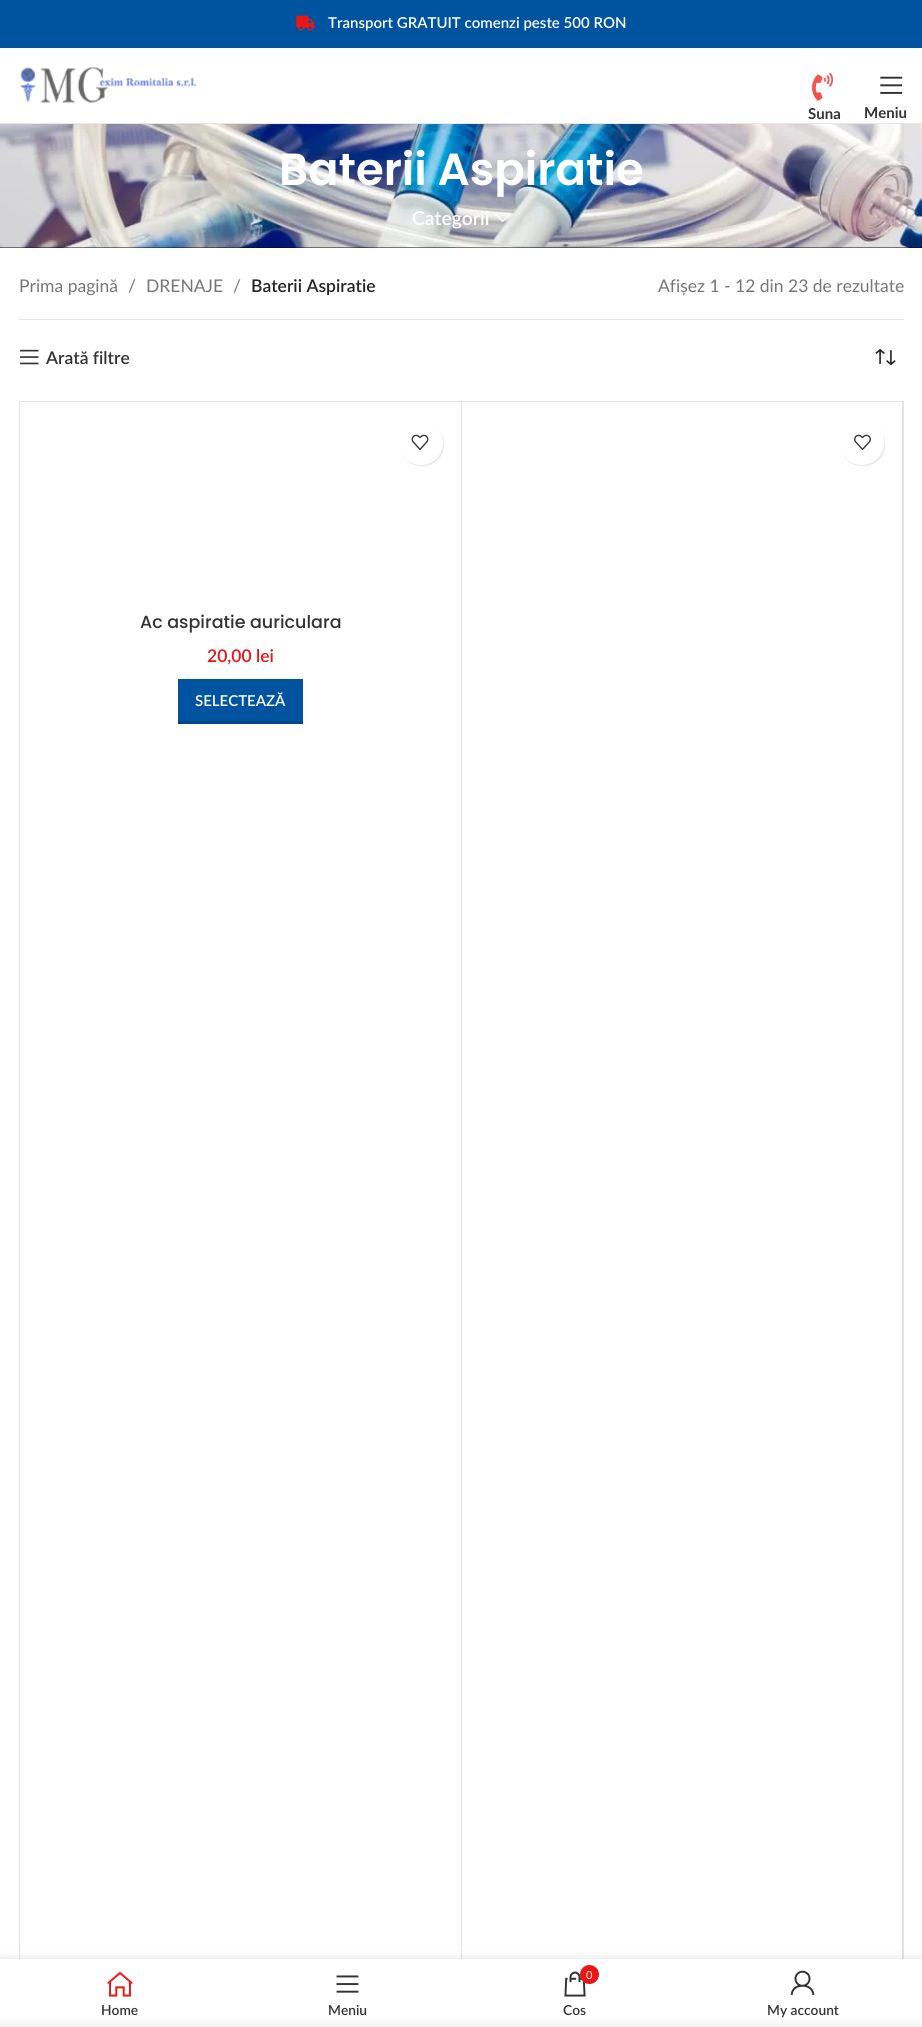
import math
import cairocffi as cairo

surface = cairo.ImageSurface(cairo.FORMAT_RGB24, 922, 2027)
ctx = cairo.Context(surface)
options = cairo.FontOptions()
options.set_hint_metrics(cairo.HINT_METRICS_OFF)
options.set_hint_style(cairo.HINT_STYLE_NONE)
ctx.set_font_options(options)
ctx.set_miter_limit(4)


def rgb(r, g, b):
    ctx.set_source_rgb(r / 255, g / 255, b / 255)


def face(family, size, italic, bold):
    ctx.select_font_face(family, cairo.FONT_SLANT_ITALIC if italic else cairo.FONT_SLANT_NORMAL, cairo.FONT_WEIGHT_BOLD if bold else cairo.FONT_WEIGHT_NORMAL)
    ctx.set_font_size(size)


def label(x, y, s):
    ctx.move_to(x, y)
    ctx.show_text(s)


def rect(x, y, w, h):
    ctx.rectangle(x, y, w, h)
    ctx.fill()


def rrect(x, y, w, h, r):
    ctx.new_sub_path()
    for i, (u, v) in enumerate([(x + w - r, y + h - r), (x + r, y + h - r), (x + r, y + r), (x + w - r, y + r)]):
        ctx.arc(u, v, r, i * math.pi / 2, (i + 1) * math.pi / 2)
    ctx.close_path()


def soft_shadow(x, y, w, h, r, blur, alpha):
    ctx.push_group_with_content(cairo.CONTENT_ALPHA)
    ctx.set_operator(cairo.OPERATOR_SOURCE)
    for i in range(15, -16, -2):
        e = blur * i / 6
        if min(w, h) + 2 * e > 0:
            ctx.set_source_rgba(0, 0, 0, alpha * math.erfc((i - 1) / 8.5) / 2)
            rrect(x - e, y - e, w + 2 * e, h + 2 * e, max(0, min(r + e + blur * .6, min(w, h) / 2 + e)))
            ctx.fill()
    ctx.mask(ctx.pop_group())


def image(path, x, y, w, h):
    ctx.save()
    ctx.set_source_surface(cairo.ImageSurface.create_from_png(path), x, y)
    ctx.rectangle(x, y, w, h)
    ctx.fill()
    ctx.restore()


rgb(255, 255, 255)
ctx.paint()
rgb(0, 83, 159)
rect(0, 0, 922, 48)
image('image0.png', 296, 15, 19, 16)
face('Lato SemiBold', 15, 0, 0)
rgb(255, 255, 255)
label(328, 28, 'Transport GRATUIT comenzi peste 500 RON')
rgb(232, 232, 232)
rect(0, 123, 922, 1)
image('image1.png', 19, 66, 178, 37)
image('image2.png', 812, 72, 22, 29)
face('Lato', 15, 0, 1)
rgb(51, 51, 51)
label(808, 119, 'Suna')
image('image3.png', 880, 76, 23, 18)
label(864, 118, 'Meniu')
rgb(10, 10, 10)
rect(0, 247, 922, 1)
image('image4.png', 0, 124, 922, 124)
face('Poppins SemiBold', 45, 0, 0)
rgb(255, 255, 255)
label(279, 185, 'Baterii Aspiratie')
face('Lato SemiBold', 19.25, 0, 0)
label(412, 225, 'Categorii')
image('image5.png', 495, 214, 15, 8)
rgb(228, 228, 228)
rect(19, 319, 885, 1)
face('Lato', 17.5, 0, 0)
rgb(118, 118, 118)
label(19, 292, 'Prima pagină')
label(128, 292, '/')
label(146, 292, 'DRENAJE')
label(233, 292, '/')
face('Lato SemiBold', 17.5, 0, 0)
rgb(36, 36, 36)
label(251, 292, 'Baterii Aspiratie')
face('Lato', 17.5, 0, 0)
rgb(118, 118, 118)
label(658, 292, 'Afișez 1 - 12 din 23 de rezultate')
image('image6.png', 20, 349, 19, 16)
face('Lato SemiBold', 17.5, 0, 0)
rgb(51, 51, 51)
label(46, 364, 'Arată filtre')
image('image7.png', 875, 348, 21, 18)
rgb(228, 228, 228)
rect(19, 401, 1, 1558)
ctx.new_path()
ctx.move_to(20, 401)
ctx.line_to(462, 401)
ctx.line_to(461, 402)
ctx.line_to(20, 402)
ctx.close_path()
ctx.fill()
ctx.set_source_rgba(0, 0, 0, 0.11)
ctx.new_path()
ctx.move_to(462, 401)
ctx.line_to(462, 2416)
ctx.line_to(461, 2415)
ctx.line_to(461, 402)
ctx.close_path()
ctx.fill()
rgb(0, 0, 0)
soft_shadow(400, 423, 44, 43, 21.5, 0.5, 0.1)
rgb(255, 255, 255)
ctx.arc(421, 443, 22, 0, 2 * math.pi)
ctx.fill()
image('image8.png', 411, 434, 18, 16)
face('Poppins Medium', 17.5, 0, 0)
rgb(51, 51, 51)
label(140, 628, 'Ac aspiratie auriculara')
face('Lato SemiBold', 17.5, 0, 0)
rgb(234, 21, 21)
label(207, 662, '20,00 lei')
rgb(0, 83, 159)
rect(178, 679, 125, 42)
rgb(0, 71, 135)
rect(178, 721, 125, 3)
face('Lato SemiBold', 15, 0, 0)
rgb(255, 255, 255)
label(195, 706, 'SELECTEAZĂ')
rgb(228, 228, 228)
ctx.new_path()
ctx.move_to(462, 401)
ctx.line_to(904, 401)
ctx.line_to(902, 402)
ctx.line_to(462, 402)
ctx.close_path()
ctx.fill()
ctx.set_source_rgba(0, 0, 0, 0.11)
ctx.new_path()
ctx.move_to(904, 401)
ctx.line_to(904, 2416)
ctx.line_to(902, 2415)
ctx.line_to(902, 402)
ctx.close_path()
ctx.fill()
rgb(0, 0, 0)
soft_shadow(841, 423, 44, 43, 21.5, 0.5, 0.1)
rgb(255, 255, 255)
ctx.arc(862, 443, 22, 0, 2 * math.pi)
ctx.fill()
image('image9.png', 854, 434, 17, 16)
rgb(0, 0, 0)
soft_shadow(0, 1959, 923, 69, 0, 5.5, 0.12)
rgb(255, 255, 255)
rect(0, 1959, 922, 68)
image('image10.png', 107, 1971, 26, 26)
face('Lato SemiBold', 13.75, 0, 0)
rgb(51, 51, 51)
label(101, 2015, 'Home')
image('image11.png', 336, 1975, 23, 18)
label(328, 2015, 'Meniu')
image('image12.png', 564, 1971, 22, 26)
rgb(234, 21, 21)
ctx.arc(589.5, 1974.5, 9.5, 0, 2 * math.pi)
ctx.fill()
face('Lato', 11, 0, 0)
rgb(255, 255, 255)
label(586, 1979, '0')
face('Lato SemiBold', 13.75, 0, 0)
rgb(51, 51, 51)
label(563, 2015, 'Cos')
image('image13.png', 790, 1970, 25, 25)
label(767, 2015, 'My account')
rgb(0, 0, 0)
soft_shadow(0, 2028, 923, 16, 0, 5.5, 0.14)
surface.write_to_png('render.png')
